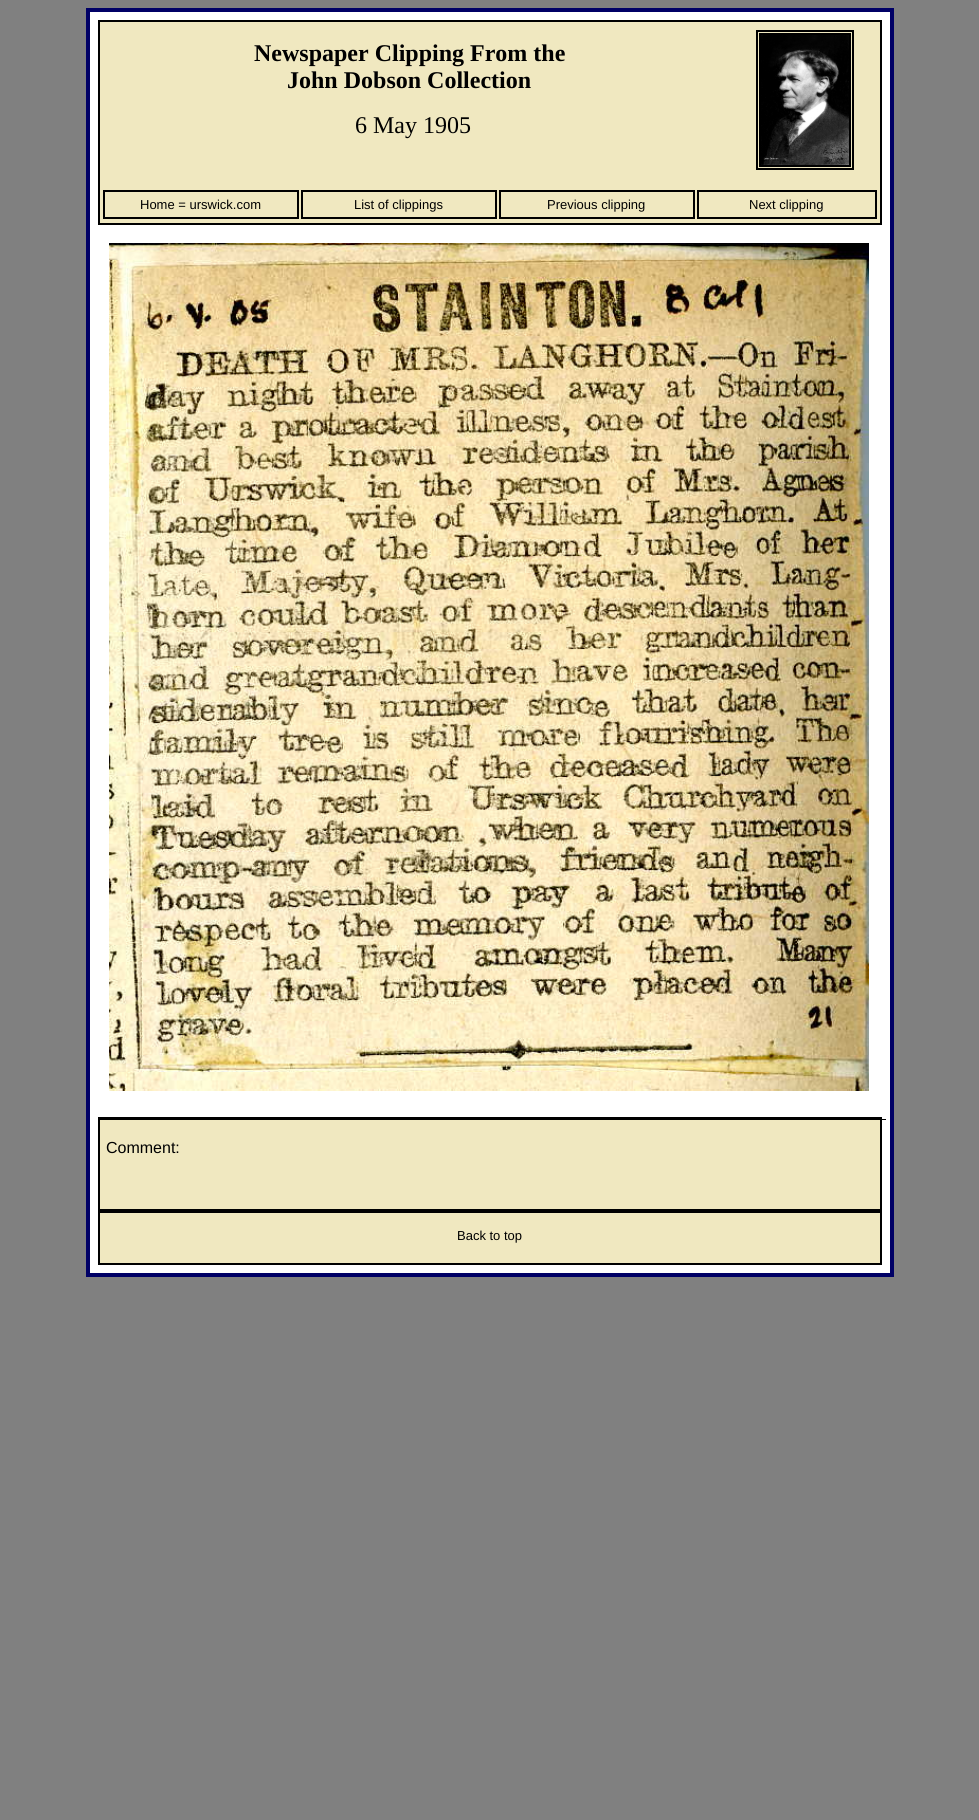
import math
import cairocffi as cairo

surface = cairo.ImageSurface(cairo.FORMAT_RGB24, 979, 1820)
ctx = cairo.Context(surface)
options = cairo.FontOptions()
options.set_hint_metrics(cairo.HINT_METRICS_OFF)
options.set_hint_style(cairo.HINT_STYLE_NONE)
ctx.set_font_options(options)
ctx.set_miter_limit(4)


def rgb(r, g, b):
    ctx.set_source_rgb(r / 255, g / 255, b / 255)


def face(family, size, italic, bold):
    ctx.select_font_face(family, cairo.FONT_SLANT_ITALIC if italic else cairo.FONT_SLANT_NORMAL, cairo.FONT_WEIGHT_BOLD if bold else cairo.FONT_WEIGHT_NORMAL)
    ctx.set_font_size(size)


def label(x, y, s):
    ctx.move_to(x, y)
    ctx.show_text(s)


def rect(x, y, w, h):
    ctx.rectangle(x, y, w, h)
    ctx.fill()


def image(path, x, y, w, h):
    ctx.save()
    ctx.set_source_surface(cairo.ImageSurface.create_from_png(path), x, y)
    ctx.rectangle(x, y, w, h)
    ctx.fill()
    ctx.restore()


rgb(128, 128, 128)
ctx.paint()
rgb(255, 255, 255)
ctx.rectangle(88, 10, 804, 1265)
ctx.fill_preserve()
rgb(0, 0, 102)
ctx.set_line_width(4)
ctx.stroke()
rgb(240, 232, 192)
ctx.rectangle(99, 21, 782, 203)
ctx.fill_preserve()
rgb(0, 0, 0)
ctx.set_line_width(2)
ctx.stroke()
face('Liberation Serif', 24, 0, 1)
label(254, 61, 'Newspaper Clipping From the')
label(287, 88, 'John Dobson Collection')
face('Liberation Serif', 24, 0, 0)
label(355, 133, '6 May 1905')
ctx.rectangle(757, 31, 96, 138)
ctx.stroke()
ctx.rectangle(760, 34, 90, 132)
ctx.stroke()
image('image0.png', 761, 35, 88, 130)
ctx.rectangle(104, 191, 194, 27)
ctx.stroke()
face('Liberation Sans', 13, 0, 0)
label(140, 209, 'Home = urswick.com')
ctx.rectangle(302, 191, 194, 27)
ctx.stroke()
label(354, 209, 'List of clippings')
ctx.rectangle(500, 191, 194, 27)
ctx.stroke()
label(547, 209, 'Previous clipping')
ctx.rectangle(698, 191, 178, 27)
ctx.stroke()
label(749, 209, 'Next clipping')
image('image1.png', 109, 243, 760, 848)
rgb(240, 232, 192)
rect(100, 1120, 780, 89)
ctx.rectangle(99, 1118, 782, 92)
rgb(0, 0, 0)
ctx.stroke()
rect(100, 1119, 786, 1)
face('Liberation Sans', 16, 0, 0)
label(106, 1153, 'Comment:')
rgb(240, 232, 192)
ctx.rectangle(99, 1212, 782, 52)
ctx.fill_preserve()
rgb(0, 0, 0)
ctx.stroke()
face('Liberation Sans', 13, 0, 0)
label(457, 1240, 'Back to top')
surface.write_to_png('render.png')
